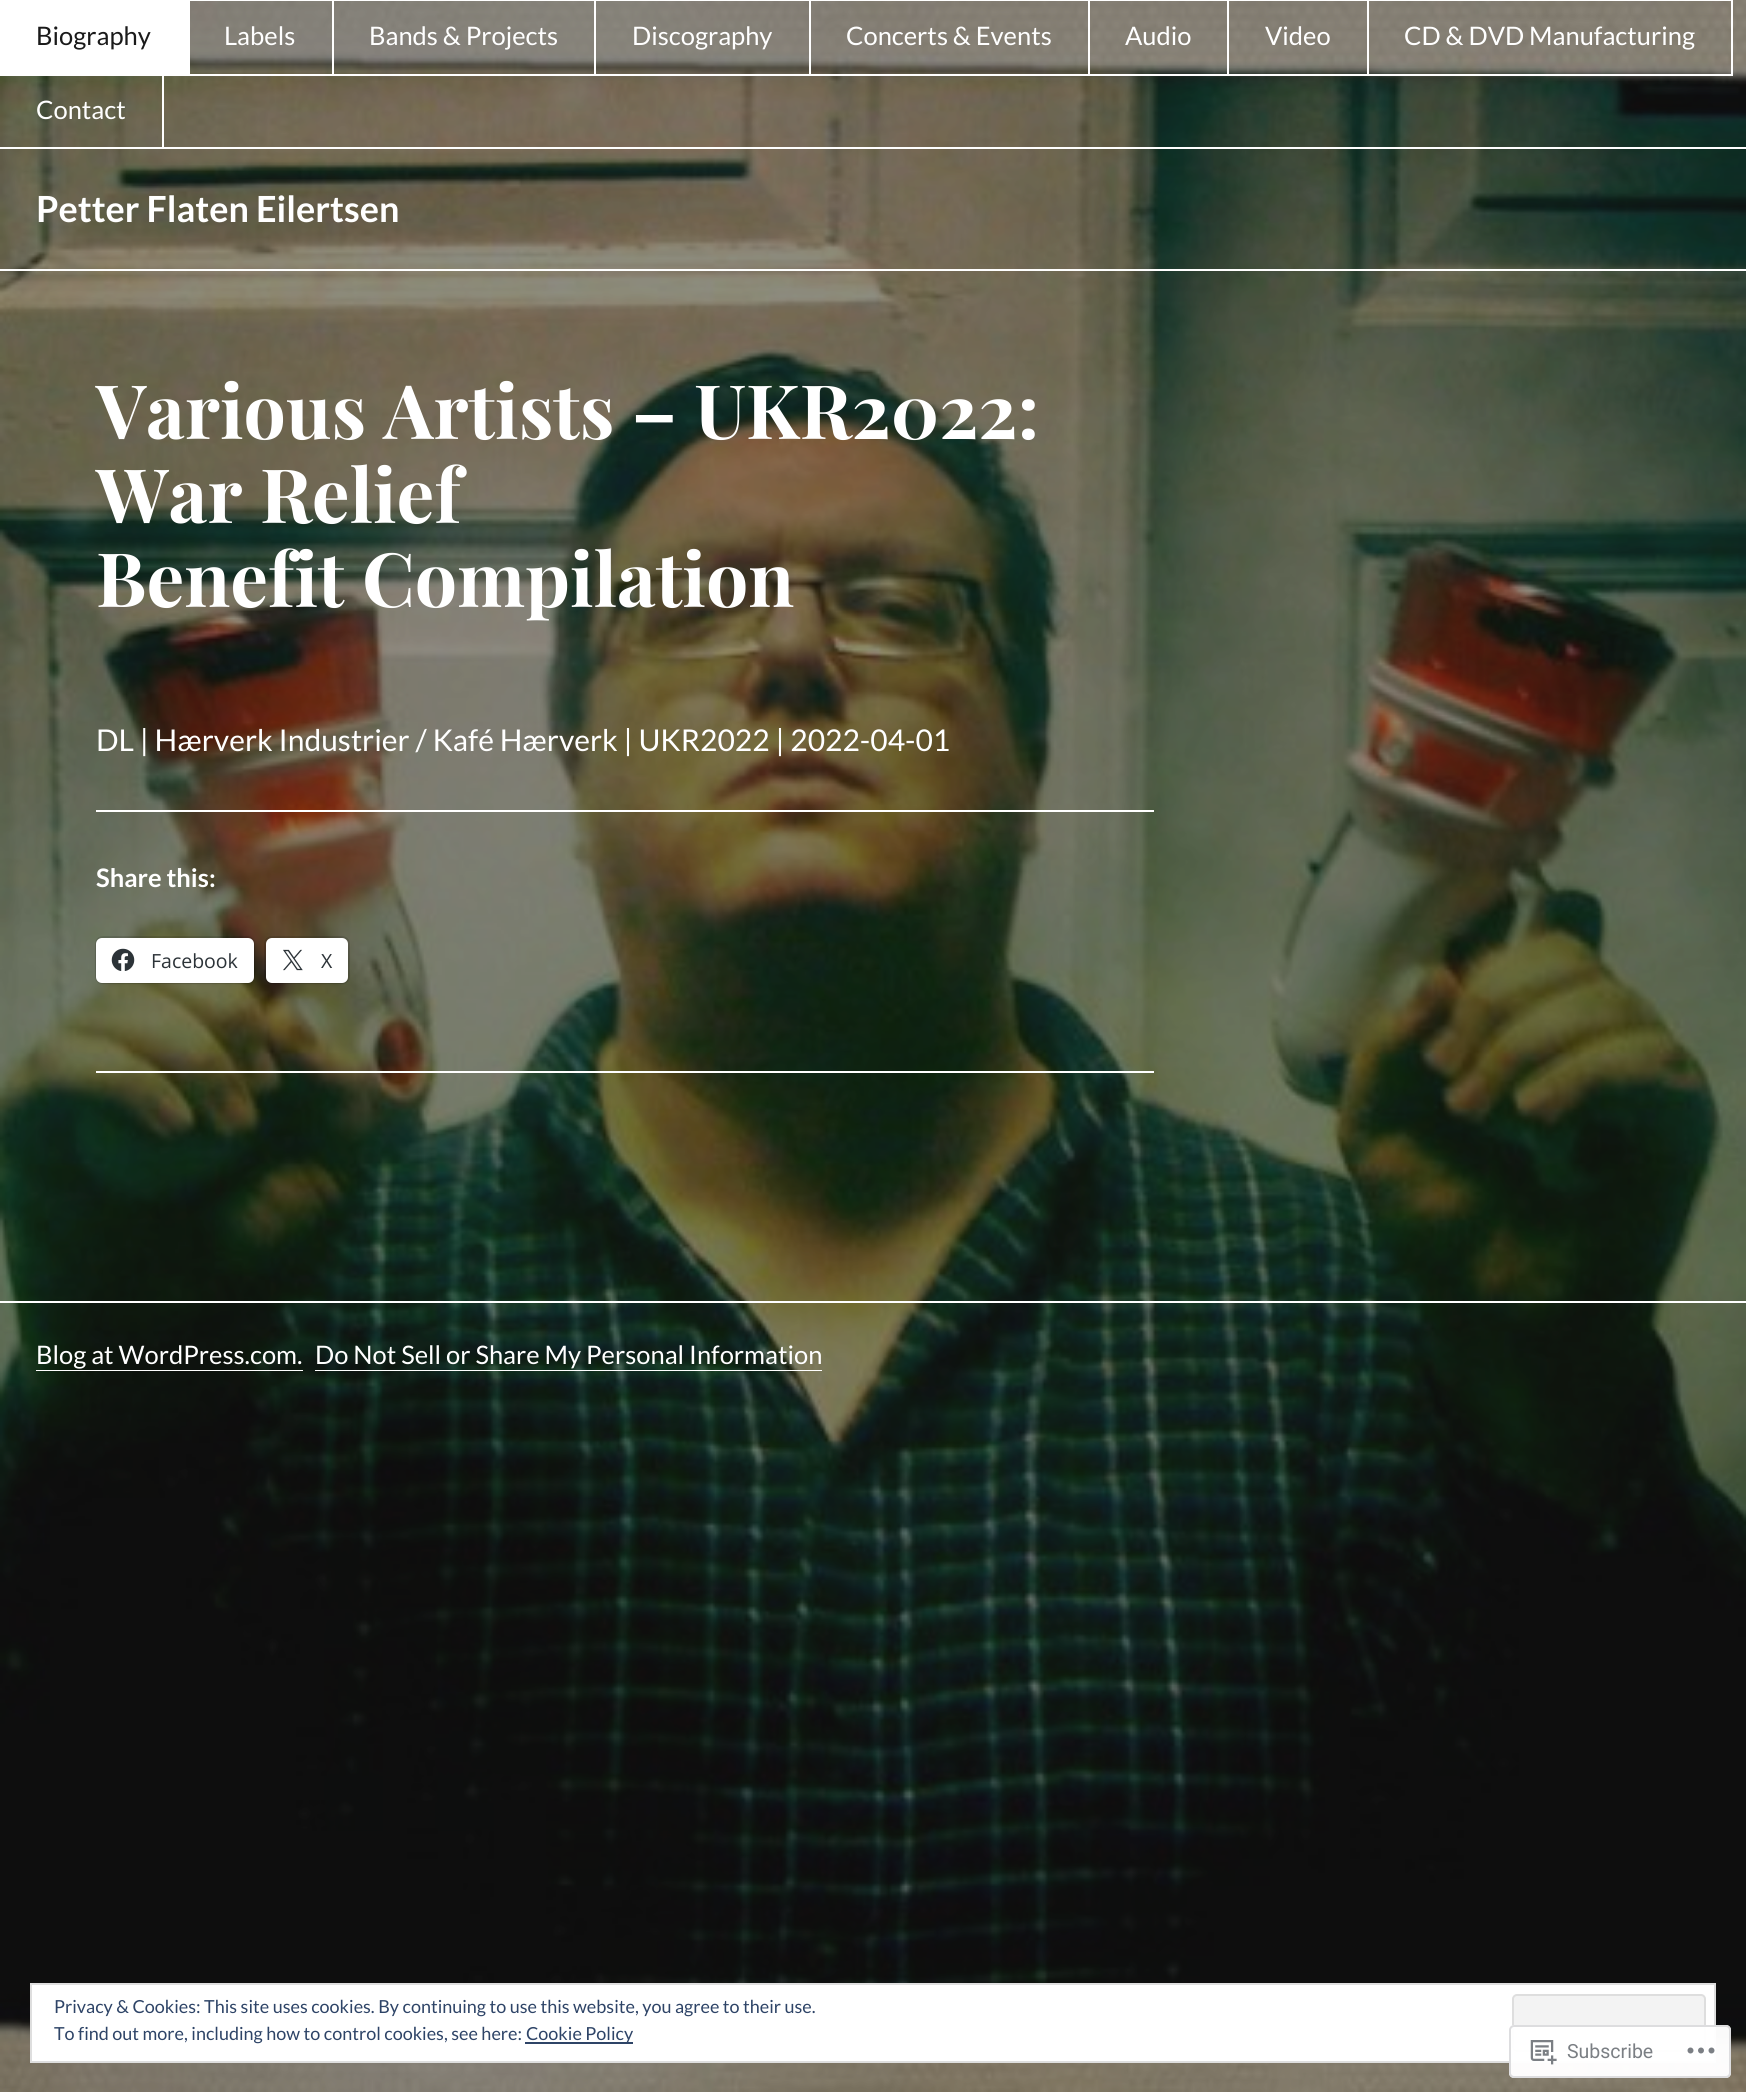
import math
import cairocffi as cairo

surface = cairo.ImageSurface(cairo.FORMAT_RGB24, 1746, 2092)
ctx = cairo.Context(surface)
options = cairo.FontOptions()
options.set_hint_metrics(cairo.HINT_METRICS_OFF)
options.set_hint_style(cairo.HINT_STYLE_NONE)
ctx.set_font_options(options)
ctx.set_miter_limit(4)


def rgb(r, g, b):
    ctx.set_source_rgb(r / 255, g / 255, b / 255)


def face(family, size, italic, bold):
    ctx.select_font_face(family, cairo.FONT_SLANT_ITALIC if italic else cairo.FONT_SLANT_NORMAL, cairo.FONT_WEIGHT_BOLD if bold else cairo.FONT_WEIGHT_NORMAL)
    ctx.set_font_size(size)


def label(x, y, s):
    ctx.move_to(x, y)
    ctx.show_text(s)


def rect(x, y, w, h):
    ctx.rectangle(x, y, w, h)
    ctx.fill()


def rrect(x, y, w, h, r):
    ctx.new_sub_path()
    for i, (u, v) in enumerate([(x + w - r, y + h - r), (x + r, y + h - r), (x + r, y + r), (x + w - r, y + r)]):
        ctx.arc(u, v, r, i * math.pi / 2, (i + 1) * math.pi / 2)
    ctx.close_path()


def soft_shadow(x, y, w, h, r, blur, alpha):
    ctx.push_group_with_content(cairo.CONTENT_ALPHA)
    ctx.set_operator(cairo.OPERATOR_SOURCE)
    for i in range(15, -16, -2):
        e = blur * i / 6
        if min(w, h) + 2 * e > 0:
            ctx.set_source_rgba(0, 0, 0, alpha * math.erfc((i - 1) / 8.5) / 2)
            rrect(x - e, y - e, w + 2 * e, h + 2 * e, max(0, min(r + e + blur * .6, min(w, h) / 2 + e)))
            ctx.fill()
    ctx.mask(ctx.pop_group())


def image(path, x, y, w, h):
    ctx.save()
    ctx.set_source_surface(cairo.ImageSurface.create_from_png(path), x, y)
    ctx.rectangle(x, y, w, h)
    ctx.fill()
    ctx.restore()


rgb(255, 255, 255)
ctx.paint()
image('image0.png', 0, 0, 1746, 2092)
rgb(255, 255, 255)
rect(0, 269, 1746, 2)
rect(0, 1, 188, 73)
rect(0, 0, 189, 1)
rect(188, 0, 2, 75)
rect(0, 74, 189, 2)
face('Lato', 25.5, 0, 0)
rgb(26, 26, 26)
label(36, 45, 'Biography')
rgb(255, 255, 255)
rect(189, 0, 144, 1)
rect(332, 0, 2, 75)
rect(189, 74, 144, 2)
label(224, 45, 'Labels')
rect(333, 0, 477, 1)
rect(594, 0, 2, 75)
rect(333, 74, 263, 2)
label(369, 45, 'Bands & Projects')
rect(809, 0, 2, 75)
rect(596, 74, 214, 2)
label(632, 45, 'Discography')
rect(810, 0, 279, 1)
rect(1088, 0, 2, 75)
rect(810, 74, 279, 2)
label(846, 45, 'Concerts & Events')
rect(1089, 0, 279, 1)
rect(1227, 0, 2, 75)
rect(1089, 74, 140, 2)
label(1125, 45, 'Audio')
rect(1367, 0, 2, 75)
rect(1229, 74, 139, 2)
label(1265, 45, 'Video')
rect(1368, 0, 365, 1)
rect(1731, 0, 2, 75)
rect(1368, 74, 365, 2)
label(1404, 45, 'CD & DVD Manufacturing')
rect(0, 147, 1746, 2)
rect(162, 74, 2, 75)
label(36, 119, 'Contact')
face('Lato', 36, 0, 1)
label(36, 222, 'Petter Flaten Eilertsen')
face('Playfair Display', 75, 0, 1)
label(96, 439, 'Various Artists – UKR2022:')
label(96, 523, 'War Relief')
label(96, 607, 'Benefit Compilation')
face('Lato', 30, 0, 0)
label(96, 751, 'DL | Hærverk Industrier / Kafé Hærverk | UKR2022 | 2022-04-01')
rect(96, 810, 1058, 2)
face('Lato', 25.5, 0, 1)
label(96, 887, 'Share this:')
rrect(96, 937, 158, 46, 7)
ctx.set_source_rgba(0, 0, 0, 0.12)
ctx.stroke()
rgb(0, 0, 0)
soft_shadow(96, 939, 158, 45, 6, 1.5, 0.12)
rgb(255, 255, 255)
rrect(96, 938, 158, 45, 6)
ctx.fill()
image('image1.png', 111, 948, 24, 23)
face('Open Sans', 19.5, 0, 0)
rgb(44, 51, 56)
label(151, 968, 'Facebook')
rrect(265, 937, 84, 46, 7)
ctx.set_source_rgba(0, 0, 0, 0.12)
ctx.stroke()
rgb(0, 0, 0)
soft_shadow(266, 939, 82, 45, 6, 1.5, 0.12)
rgb(255, 255, 255)
rrect(266, 938, 82, 45, 6)
ctx.fill()
image('image2.png', 283, 949, 20, 22)
rgb(44, 51, 56)
label(321, 968, 'X')
rgb(255, 255, 255)
rect(96, 1071, 1058, 2)
rect(0, 1301, 1746, 2)
face('Lato', 25.5, 0, 0)
label(36, 1364, 'Blog at WordPress.com.')
rect(36, 1370, 267, 1)
label(315, 1364, 'Do Not Sell or Share My Personal Information')
rect(315, 1370, 507, 1)
ctx.rectangle(31, 1984, 1684, 78)
ctx.fill_preserve()
rgb(222, 222, 222)
ctx.stroke()
face('Lato', 18, 0, 0)
rgb(46, 68, 103)
label(54, 2013, 'Privacy & Cookies: This site uses cookies. By continuing to use this website, you agree to their use.')
rgb(243, 243, 243)
rrect(1513, 1995, 192, 56, 4)
ctx.fill_preserve()
rgb(222, 222, 222)
ctx.stroke()
rgb(46, 68, 103)
label(54, 2040, 'To find out more, including how to control cookies, see here:')
rect(525, 2042, 108, 2)
label(526, 2040, 'Cookie Policy')
ctx.set_source_rgba(1, 1, 1, 0.98)
rrect(1509, 2025, 222, 53, 5)
ctx.fill()
rrect(1510, 2026, 220, 51, 4)
ctx.set_source_rgba(0.863, 0.863, 0.871, 0.98)
ctx.stroke()
image('image3.png', 1530, 2040, 27, 25)
face('Roboto', 19.5, 0, 0)
rgb(123, 127, 132)
label(1567, 2058, 'Subscribe')
image('image4.png', 1687, 2047, 28, 7)
surface.write_to_png('render.png')
